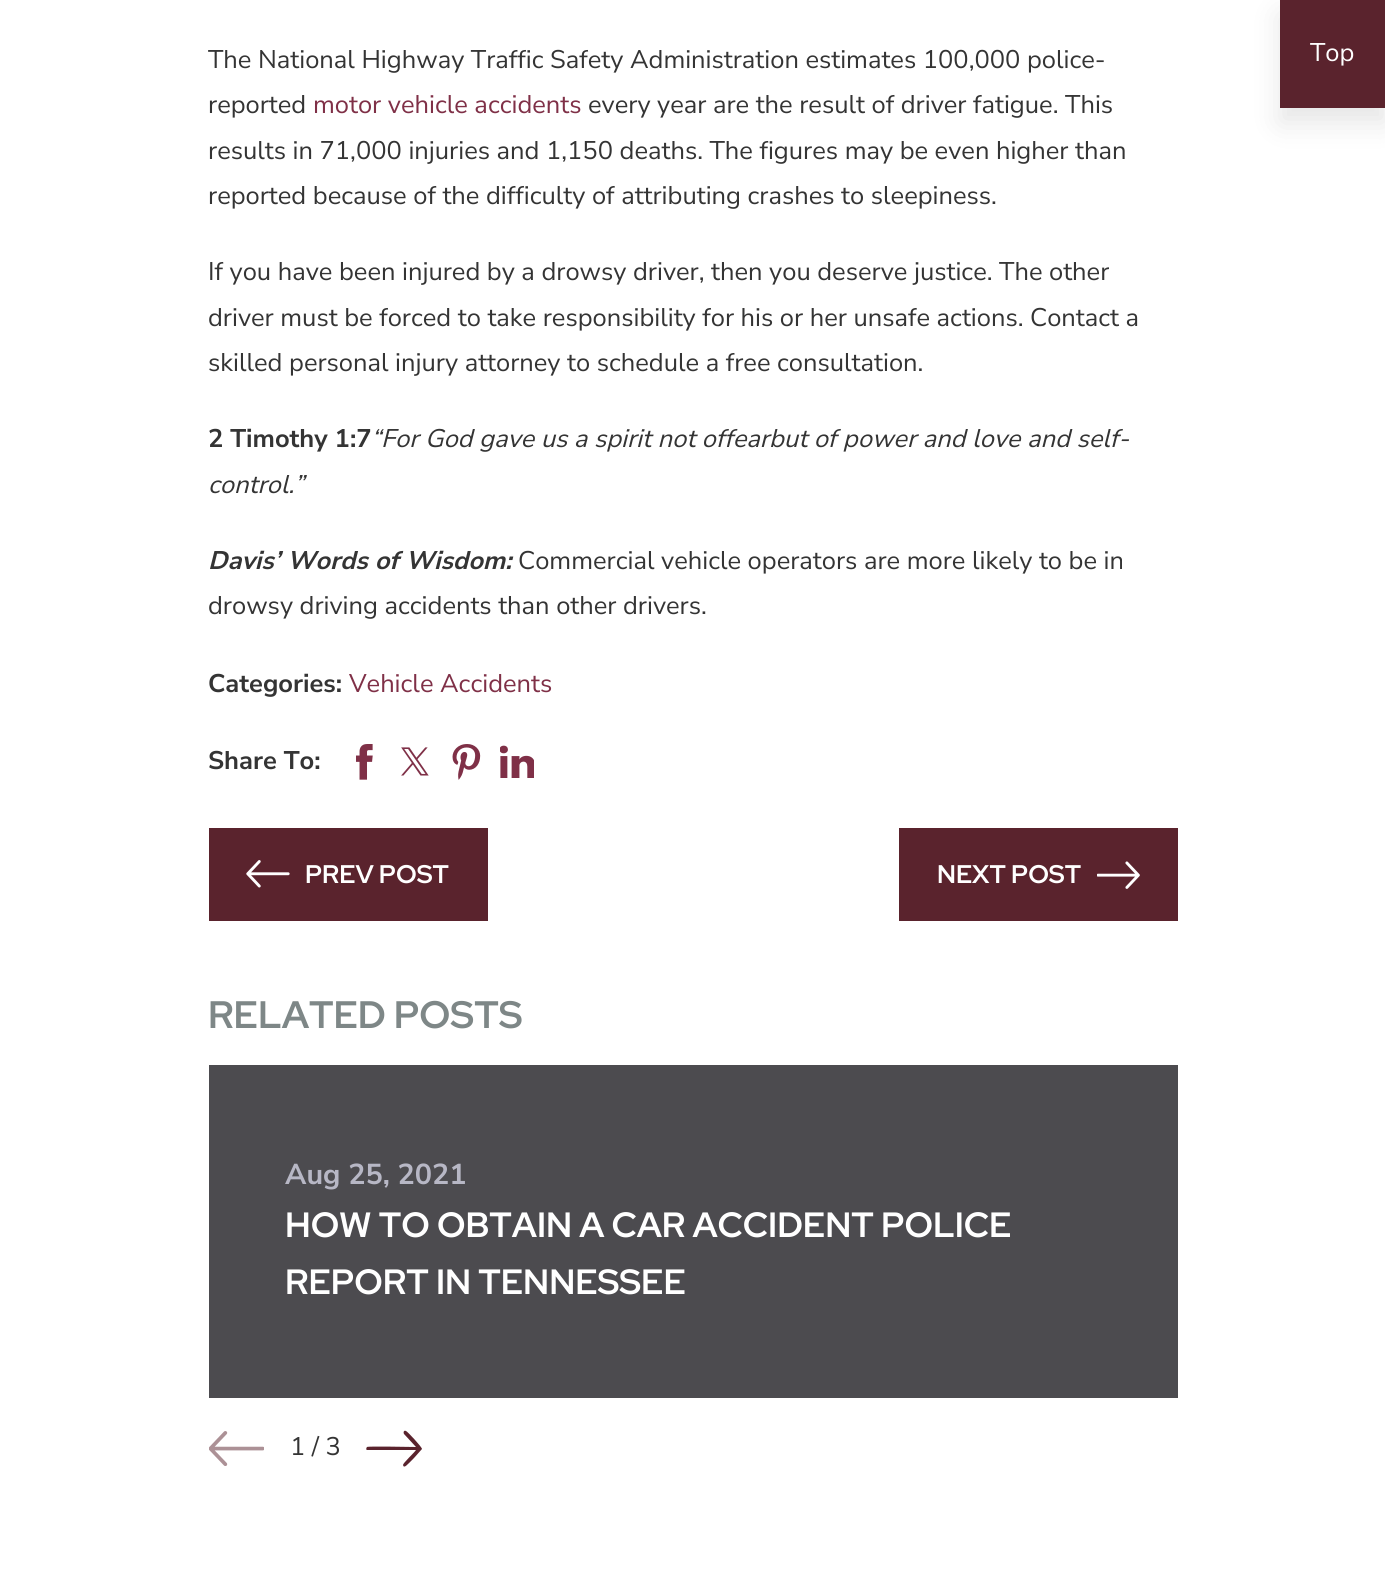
import math
import cairocffi as cairo

surface = cairo.ImageSurface(cairo.FORMAT_RGB24, 1385, 1571)
ctx = cairo.Context(surface)
options = cairo.FontOptions()
options.set_hint_metrics(cairo.HINT_METRICS_OFF)
options.set_hint_style(cairo.HINT_STYLE_NONE)
ctx.set_font_options(options)
ctx.set_miter_limit(4)


def rgb(r, g, b):
    ctx.set_source_rgb(r / 255, g / 255, b / 255)


def face(family, size, italic, bold):
    ctx.select_font_face(family, cairo.FONT_SLANT_ITALIC if italic else cairo.FONT_SLANT_NORMAL, cairo.FONT_WEIGHT_BOLD if bold else cairo.FONT_WEIGHT_NORMAL)
    ctx.set_font_size(size)


def label(x, y, s):
    ctx.move_to(x, y)
    ctx.show_text(s)


def rect(x, y, w, h):
    ctx.rectangle(x, y, w, h)
    ctx.fill()


def rrect(x, y, w, h, r):
    ctx.new_sub_path()
    for i, (u, v) in enumerate([(x + w - r, y + h - r), (x + r, y + h - r), (x + r, y + r), (x + w - r, y + r)]):
        ctx.arc(u, v, r, i * math.pi / 2, (i + 1) * math.pi / 2)
    ctx.close_path()


def soft_shadow(x, y, w, h, r, blur, alpha):
    ctx.push_group_with_content(cairo.CONTENT_ALPHA)
    ctx.set_operator(cairo.OPERATOR_SOURCE)
    for i in range(15, -16, -2):
        e = blur * i / 6
        if min(w, h) + 2 * e > 0:
            ctx.set_source_rgba(0, 0, 0, alpha * math.erfc((i - 1) / 8.5) / 2)
            rrect(x - e, y - e, w + 2 * e, h + 2 * e, max(0, min(r + e + blur * .6, min(w, h) / 2 + e)))
            ctx.fill()
    ctx.mask(ctx.pop_group())


def image(path, x, y, w, h):
    ctx.save()
    ctx.set_source_surface(cairo.ImageSurface.create_from_png(path), x, y)
    ctx.rectangle(x, y, w, h)
    ctx.fill()
    ctx.restore()


rgb(255, 255, 255)
ctx.paint()
face('Nunito Sans', 25.5, 0, 0)
rgb(52, 52, 52)
label(208, 68, 'The National Highway Traffic Safety Administration estimates 100,000 police-')
label(208, 113, 'reported')
rgb(127, 48, 71)
label(313, 113, 'motor vehicle accidents')
rgb(52, 52, 52)
label(588, 113, 'every year are the result of driver fatigue. This')
label(208, 159, 'results in 71,000 injuries and 1,150 deaths. The figures may be even higher than')
label(208, 204, 'reported because of the difficulty of attributing crashes to sleepiness.')
label(208, 280, 'If you have been injured by a drowsy driver, then you deserve justice. The other')
label(208, 326, 'driver must be forced to take responsibility for his or her unsafe actions. Contact a')
label(208, 371, 'skilled personal injury attorney to schedule a free consultation.')
face('Nunito Sans', 25.5, 0, 1)
label(208, 447, '2 Timothy 1:7')
face('Nunito Sans', 25.5, 1, 0)
label(371, 447, '“For God gave us a spirit not offearbut of power and love and self-')
label(208, 493, 'control.”')
face('Nunito Sans', 25.5, 1, 1)
label(208, 569, 'Davis’ Words of Wisdom:')
face('Nunito Sans', 25.5, 0, 0)
label(518, 569, 'Commercial vehicle operators are more likely to be in')
label(208, 614, 'drowsy driving accidents than other drivers.')
face('Nunito Sans', 25.5, 0, 1)
label(208, 692, 'Categories:')
face('Nunito Sans', 25.5, 0, 0)
rgb(127, 48, 71)
label(349, 692, 'Vehicle Accidents')
face('Nunito Sans', 25.5, 0, 1)
rgb(52, 52, 52)
label(208, 769, 'Share To:')
image('image0.png', 356, 744, 17, 36)
image('image1.png', 401, 747, 28, 29)
image('image2.png', 452, 744, 29, 36)
image('image3.png', 500, 745, 34, 33)
rgb(90, 35, 45)
rect(209, 828, 279, 93)
image('image4.png', 246, 860, 44, 28)
face('Red Hat Display', 25.5, 0, 1)
rgb(255, 255, 255)
label(305, 883, 'PREV POST')
rgb(90, 35, 45)
rect(899, 828, 279, 93)
rgb(255, 255, 255)
label(937, 883, 'NEXT POST')
image('image5.png', 1097, 861, 43, 28)
face('Red Hat Display', 38.25, 0, 1)
rgb(126, 135, 135)
label(208, 1028, 'RELATED POSTS')
rgb(76, 75, 79)
rect(209, 1065, 969, 333)
face('Nunito Sans', 28.75, 0, 1)
rgb(183, 183, 197)
label(285, 1184, 'Aug 25, 2021')
face('Red Hat Display', 35.1, 0, 1)
rgb(255, 255, 255)
label(285, 1237, 'HOW TO OBTAIN A CAR ACCIDENT POLICE')
label(285, 1294, 'REPORT IN TENNESSEE')
image('image6.png', 209, 1431, 55, 35)
face('Nunito Sans', 25.5, 0, 0)
rgb(52, 52, 52)
label(290, 1455, '1 / 3')
rgb(90, 35, 45)
ctx.new_path()
ctx.move_to(422, 1449)
ctx.curve_to(422, 1447, 407, 1431, 406, 1431)
ctx.curve_to(404, 1430, 403, 1432, 404, 1434)
ctx.line_to(416, 1447)
ctx.curve_to(411, 1447, 368, 1446, 367, 1447)
ctx.curve_to(366, 1448, 366, 1450, 367, 1450)
ctx.line_to(416, 1450)
ctx.curve_to(414, 1453, 403, 1463, 403, 1465)
ctx.curve_to(404, 1469, 407, 1465, 414, 1458)
ctx.close_path()
ctx.fill()
rgb(0, 0, 0)
soft_shadow(1280, 15, 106, 108, 0, 14, 0.1)
rgb(90, 35, 45)
rect(1280, 0, 105, 108)
rgb(255, 255, 255)
label(1310, 61, 'Top')
surface.write_to_png('render.png')
